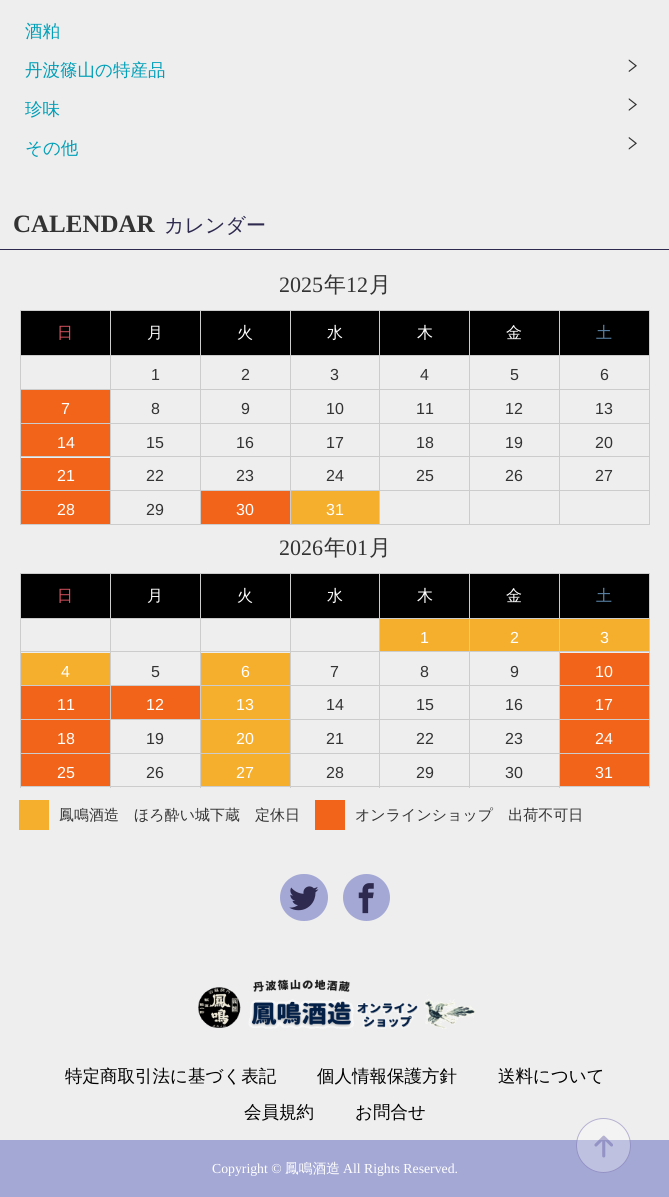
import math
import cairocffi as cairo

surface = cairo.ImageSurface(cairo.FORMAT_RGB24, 669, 1197)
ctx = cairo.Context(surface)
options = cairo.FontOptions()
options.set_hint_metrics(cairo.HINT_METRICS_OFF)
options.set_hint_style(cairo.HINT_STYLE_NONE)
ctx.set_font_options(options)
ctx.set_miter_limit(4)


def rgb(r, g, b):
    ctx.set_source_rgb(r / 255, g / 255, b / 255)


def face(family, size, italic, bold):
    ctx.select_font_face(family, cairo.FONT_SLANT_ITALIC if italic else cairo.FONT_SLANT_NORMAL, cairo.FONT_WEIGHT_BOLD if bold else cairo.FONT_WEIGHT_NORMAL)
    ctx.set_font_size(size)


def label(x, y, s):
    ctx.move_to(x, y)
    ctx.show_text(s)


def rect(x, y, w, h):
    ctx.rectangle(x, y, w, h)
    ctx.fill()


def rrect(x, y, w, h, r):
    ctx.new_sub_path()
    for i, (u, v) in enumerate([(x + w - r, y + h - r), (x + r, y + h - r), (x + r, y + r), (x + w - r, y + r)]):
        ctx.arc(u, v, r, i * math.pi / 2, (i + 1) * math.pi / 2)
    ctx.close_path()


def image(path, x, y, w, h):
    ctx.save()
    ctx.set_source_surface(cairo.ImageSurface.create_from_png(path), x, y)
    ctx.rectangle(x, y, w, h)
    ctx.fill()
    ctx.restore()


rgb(238, 238, 238)
ctx.paint()
face('WenQuanYi Zen Hei Medium', 17.5, 0, 0)
rgb(0, 159, 183)
label(25, 37, '酒粕')
label(25, 76, '丹波篠山の特産品')
image('image0.png', 628, 59, 9, 13)
label(25, 115, '珍味')
image('image1.png', 628, 98, 9, 13)
label(25, 154, 'その他')
image('image2.png', 628, 137, 9, 13)
rgb(46, 41, 78)
rect(0, 249, 669, 1)
face('Liberation Serif', 25, 0, 1)
rgb(51, 51, 51)
label(13, 232, 'CALENDAR')
face('WenQuanYi Zen Hei Medium', 20, 0, 0)
rgb(46, 41, 78)
label(164, 232, 'カレンダー')
face('Liberation Serif', 22, 0, 0)
rgb(51, 51, 51)
label(279, 292, '2025')
face('WenQuanYi Zen Hei Medium', 22, 0, 0)
label(324, 292, '年')
face('Liberation Serif', 22, 0, 0)
label(346, 292, '12')
face('WenQuanYi Zen Hei Medium', 22, 0, 0)
label(369, 292, '月')
rgb(0, 0, 0)
rect(21, 311, 89, 44)
rgb(204, 204, 204)
rect(559, 310, 91, 1)
rect(559, 355, 91, 1)
rect(559, 389, 91, 1)
rect(559, 423, 91, 1)
rect(559, 456, 91, 1)
rect(559, 490, 91, 1)
rect(649, 490, 1, 35)
rect(559, 524, 91, 1)
rect(559, 490, 1, 35)
rect(469, 490, 91, 1)
rect(559, 456, 1, 35)
rect(469, 456, 91, 1)
rect(559, 423, 1, 35)
rect(469, 423, 91, 1)
rect(559, 389, 1, 35)
rect(469, 389, 91, 1)
rect(559, 355, 1, 35)
rect(469, 355, 91, 1)
rect(559, 310, 1, 46)
rect(469, 310, 91, 1)
rect(469, 524, 91, 1)
rect(469, 490, 1, 35)
rect(379, 490, 91, 1)
rect(469, 456, 1, 35)
rect(379, 456, 91, 1)
rect(469, 423, 1, 35)
rect(379, 423, 91, 1)
rect(469, 389, 1, 35)
rect(379, 389, 91, 1)
rect(469, 355, 1, 35)
rect(379, 355, 91, 1)
rect(469, 310, 1, 46)
rect(379, 310, 91, 1)
rect(379, 524, 91, 1)
rect(379, 490, 1, 35)
rect(290, 490, 90, 1)
rect(379, 456, 1, 35)
rect(290, 456, 90, 1)
rect(379, 423, 1, 35)
rect(290, 423, 90, 1)
rect(379, 389, 1, 35)
rect(290, 389, 90, 1)
rect(379, 355, 1, 35)
rect(290, 355, 90, 1)
rect(379, 310, 1, 46)
rect(290, 310, 90, 1)
rect(290, 524, 90, 1)
rect(290, 490, 1, 35)
rect(200, 490, 91, 1)
rect(290, 456, 1, 35)
rect(200, 456, 91, 1)
rect(290, 423, 1, 35)
rect(200, 423, 91, 1)
rect(290, 389, 1, 35)
rect(200, 389, 91, 1)
rect(290, 355, 1, 35)
rect(200, 355, 91, 1)
rect(290, 310, 1, 46)
rect(200, 310, 91, 1)
rect(200, 524, 91, 1)
rect(200, 490, 1, 35)
rect(110, 490, 91, 1)
rect(200, 456, 1, 35)
rect(110, 456, 91, 1)
rect(200, 423, 1, 35)
rect(110, 423, 91, 1)
rect(200, 389, 1, 35)
rect(110, 389, 91, 1)
rect(200, 355, 1, 35)
rect(110, 355, 91, 1)
rect(200, 310, 1, 46)
rect(110, 310, 91, 1)
rect(110, 524, 91, 1)
rect(110, 490, 1, 35)
rect(20, 490, 91, 1)
rect(110, 456, 1, 35)
rect(20, 456, 91, 1)
rect(110, 423, 1, 35)
rect(20, 423, 91, 1)
rect(110, 389, 1, 35)
rect(20, 389, 91, 1)
rect(110, 355, 1, 35)
rect(20, 355, 91, 1)
rect(110, 310, 1, 46)
rect(20, 310, 91, 1)
rect(20, 524, 91, 1)
rect(20, 490, 1, 35)
rect(20, 456, 1, 35)
rect(20, 423, 1, 35)
rect(20, 389, 1, 35)
rect(20, 355, 1, 35)
rect(20, 310, 1, 46)
face('WenQuanYi Zen Hei Medium', 16, 0, 0)
rgb(219, 84, 97)
label(57, 338, '日')
rgb(0, 0, 0)
rect(111, 311, 89, 44)
rgb(255, 255, 255)
label(147, 338, '月')
rgb(0, 0, 0)
rect(201, 311, 89, 44)
rgb(255, 255, 255)
label(237, 338, '火')
rgb(0, 0, 0)
rect(291, 311, 88, 44)
rgb(255, 255, 255)
label(327, 338, '水')
rgb(0, 0, 0)
rect(380, 311, 89, 44)
rgb(255, 255, 255)
label(417, 338, '木')
rgb(0, 0, 0)
rect(470, 311, 89, 44)
rgb(255, 255, 255)
label(506, 338, '金')
rgb(0, 0, 0)
rect(560, 311, 89, 44)
rgb(204, 204, 204)
rect(649, 456, 1, 35)
rect(649, 423, 1, 35)
rect(649, 389, 1, 35)
rect(649, 355, 1, 35)
rect(649, 310, 1, 46)
rgb(91, 133, 170)
label(596, 338, '土')
face('Liberation Sans', 16, 0, 0)
rgb(51, 51, 51)
label(151, 380, '1')
label(241, 380, '2')
label(330, 380, '3')
label(420, 380, '4')
label(510, 380, '5')
label(600, 380, '6')
rgb(242, 100, 25)
rect(21, 390, 89, 33)
rgb(255, 255, 255)
label(61, 414, '7')
rgb(51, 51, 51)
label(151, 414, '8')
label(241, 414, '9')
label(326, 414, '10')
label(416, 414, '11')
label(505, 414, '12')
label(595, 414, '13')
rgb(242, 100, 25)
rect(21, 424, 89, 32)
rgb(255, 255, 255)
label(57, 448, '14')
rgb(51, 51, 51)
label(146, 448, '15')
label(236, 448, '16')
label(326, 448, '17')
label(416, 448, '18')
label(505, 448, '19')
label(595, 448, '20')
rgb(242, 100, 25)
rect(21, 458, 89, 32)
rgb(255, 255, 255)
label(57, 481, '21')
rgb(51, 51, 51)
label(146, 481, '22')
label(236, 481, '23')
label(326, 481, '24')
label(416, 481, '25')
label(505, 481, '26')
label(595, 481, '27')
rgb(242, 100, 25)
rect(21, 491, 89, 33)
rgb(255, 255, 255)
label(57, 515, '28')
rgb(51, 51, 51)
label(146, 515, '29')
rgb(242, 100, 25)
rect(201, 491, 89, 33)
rgb(255, 255, 255)
label(236, 515, '30')
rgb(246, 174, 45)
rect(291, 491, 88, 33)
rgb(255, 255, 255)
label(326, 515, '31')
face('Liberation Serif', 22, 0, 0)
rgb(51, 51, 51)
label(279, 555, '2026')
face('WenQuanYi Zen Hei Medium', 22, 0, 0)
label(324, 555, '年')
face('Liberation Serif', 22, 0, 0)
label(346, 555, '01')
face('WenQuanYi Zen Hei Medium', 22, 0, 0)
label(369, 555, '月')
rgb(0, 0, 0)
rect(21, 574, 89, 44)
rgb(204, 204, 204)
rect(559, 573, 91, 1)
rect(559, 618, 91, 1)
rect(559, 651, 91, 1)
rect(559, 685, 91, 1)
rect(559, 719, 91, 1)
rect(559, 753, 91, 1)
rect(649, 753, 1, 35)
rect(559, 786, 91, 1)
rect(559, 753, 1, 35)
rect(469, 753, 91, 1)
rect(559, 719, 1, 35)
rect(469, 719, 91, 1)
rect(559, 685, 1, 35)
rect(469, 685, 91, 1)
rect(559, 651, 1, 35)
rect(469, 651, 91, 1)
rect(559, 618, 1, 35)
rect(469, 618, 91, 1)
rect(559, 573, 1, 46)
rect(469, 573, 91, 1)
rect(469, 786, 91, 1)
rect(469, 753, 1, 35)
rect(379, 753, 91, 1)
rect(469, 719, 1, 35)
rect(379, 719, 91, 1)
rect(469, 685, 1, 35)
rect(379, 685, 91, 1)
rect(469, 651, 1, 35)
rect(379, 651, 91, 1)
rect(469, 618, 1, 35)
rect(379, 618, 91, 1)
rect(469, 573, 1, 46)
rect(379, 573, 91, 1)
rect(379, 786, 91, 1)
rect(379, 753, 1, 35)
rect(290, 753, 90, 1)
rect(379, 719, 1, 35)
rect(290, 719, 90, 1)
rect(379, 685, 1, 35)
rect(290, 685, 90, 1)
rect(379, 651, 1, 35)
rect(290, 651, 90, 1)
rect(379, 618, 1, 35)
rect(290, 618, 90, 1)
rect(379, 573, 1, 46)
rect(290, 573, 90, 1)
rect(290, 786, 90, 1)
rect(290, 753, 1, 35)
rect(200, 753, 91, 1)
rect(290, 719, 1, 35)
rect(200, 719, 91, 1)
rect(290, 685, 1, 35)
rect(200, 685, 91, 1)
rect(290, 651, 1, 35)
rect(200, 651, 91, 1)
rect(290, 618, 1, 35)
rect(200, 618, 91, 1)
rect(290, 573, 1, 46)
rect(200, 573, 91, 1)
rect(200, 786, 91, 1)
rect(200, 753, 1, 35)
rect(110, 753, 91, 1)
rect(200, 719, 1, 35)
rect(110, 719, 91, 1)
rect(200, 685, 1, 35)
rect(110, 685, 91, 1)
rect(200, 651, 1, 35)
rect(110, 651, 91, 1)
rect(200, 618, 1, 35)
rect(110, 618, 91, 1)
rect(200, 573, 1, 46)
rect(110, 573, 91, 1)
rect(110, 786, 91, 1)
rect(110, 753, 1, 35)
rect(20, 753, 91, 1)
rect(110, 719, 1, 35)
rect(20, 719, 91, 1)
rect(110, 685, 1, 35)
rect(20, 685, 91, 1)
rect(110, 651, 1, 35)
rect(20, 651, 91, 1)
rect(110, 618, 1, 35)
rect(20, 618, 91, 1)
rect(110, 573, 1, 46)
rect(20, 573, 91, 1)
rect(20, 786, 91, 1)
rect(20, 753, 1, 35)
rect(20, 719, 1, 35)
rect(20, 685, 1, 35)
rect(20, 651, 1, 35)
rect(20, 618, 1, 35)
rect(20, 573, 1, 46)
face('WenQuanYi Zen Hei Medium', 16, 0, 0)
rgb(219, 84, 97)
label(57, 601, '日')
rgb(0, 0, 0)
rect(111, 574, 89, 44)
rgb(255, 255, 255)
label(147, 601, '月')
rgb(0, 0, 0)
rect(201, 574, 89, 44)
rgb(255, 255, 255)
label(237, 601, '火')
rgb(0, 0, 0)
rect(291, 574, 88, 44)
rgb(255, 255, 255)
label(327, 601, '水')
rgb(0, 0, 0)
rect(380, 574, 89, 44)
rgb(255, 255, 255)
label(417, 601, '木')
rgb(0, 0, 0)
rect(470, 574, 89, 44)
rgb(255, 255, 255)
label(506, 601, '金')
rgb(0, 0, 0)
rect(560, 574, 89, 44)
rgb(204, 204, 204)
rect(649, 719, 1, 35)
rect(649, 685, 1, 35)
rect(649, 651, 1, 35)
rect(649, 618, 1, 35)
rect(649, 573, 1, 46)
rgb(91, 133, 170)
label(596, 601, '土')
rgb(246, 174, 45)
rect(380, 619, 89, 32)
face('Liberation Sans', 16, 0, 0)
rgb(255, 255, 255)
label(420, 643, '1')
rgb(246, 174, 45)
rect(470, 619, 89, 32)
rgb(255, 255, 255)
label(510, 643, '2')
rgb(246, 174, 45)
rect(560, 619, 89, 32)
rgb(255, 255, 255)
label(600, 643, '3')
rgb(246, 174, 45)
rect(21, 653, 89, 32)
rgb(255, 255, 255)
label(61, 677, '4')
rgb(51, 51, 51)
label(151, 677, '5')
rgb(246, 174, 45)
rect(201, 653, 89, 32)
rgb(255, 255, 255)
label(241, 677, '6')
rgb(51, 51, 51)
label(330, 677, '7')
label(420, 677, '8')
label(510, 677, '9')
rgb(242, 100, 25)
rect(560, 653, 89, 32)
rgb(255, 255, 255)
label(595, 677, '10')
rgb(242, 100, 25)
rect(21, 686, 89, 33)
rgb(255, 255, 255)
label(57, 710, '11')
rgb(242, 100, 25)
rect(111, 686, 89, 33)
rgb(255, 255, 255)
label(146, 710, '12')
rgb(246, 174, 45)
rect(201, 686, 89, 33)
rgb(255, 255, 255)
label(236, 710, '13')
rgb(51, 51, 51)
label(326, 710, '14')
label(416, 710, '15')
label(505, 710, '16')
rgb(242, 100, 25)
rect(560, 686, 89, 33)
rgb(255, 255, 255)
label(595, 710, '17')
rgb(242, 100, 25)
rect(21, 720, 89, 33)
rgb(255, 255, 255)
label(57, 744, '18')
rgb(51, 51, 51)
label(146, 744, '19')
rgb(246, 174, 45)
rect(201, 720, 89, 33)
rgb(255, 255, 255)
label(236, 744, '20')
rgb(51, 51, 51)
label(326, 744, '21')
label(416, 744, '22')
label(505, 744, '23')
rgb(242, 100, 25)
rect(560, 720, 89, 33)
rgb(255, 255, 255)
label(595, 744, '24')
rgb(242, 100, 25)
rect(21, 754, 89, 32)
rgb(255, 255, 255)
label(57, 778, '25')
rgb(51, 51, 51)
label(146, 778, '26')
rgb(246, 174, 45)
rect(201, 754, 89, 32)
rgb(255, 255, 255)
label(236, 778, '27')
rgb(51, 51, 51)
label(326, 778, '28')
label(416, 778, '29')
label(505, 778, '30')
rgb(242, 100, 25)
rect(560, 754, 89, 32)
rgb(255, 255, 255)
label(595, 778, '31')
rgb(246, 174, 45)
rect(19, 800, 30, 30)
face('WenQuanYi Zen Hei Medium', 15, 0, 0)
rgb(51, 51, 51)
label(59, 820, '鳳鳴酒造　ほろ酔い城下蔵　定休日')
rgb(242, 100, 25)
rect(315, 800, 30, 30)
rgb(51, 51, 51)
label(355, 820, 'オンラインショップ　出荷不可日')
rgb(164, 168, 212)
rrect(280, 874, 48, 47, 23.5)
ctx.fill()
image('image3.png', 289, 886, 30, 25)
ctx.arc(366.5, 897.5, 23.5, 0, 2 * math.pi)
ctx.fill()
image('image4.png', 358, 883, 16, 31)
image('image5.png', 198, 979, 277, 50)
face('WenQuanYi Zen Hei Medium', 17.5, 0, 0)
rgb(0, 0, 0)
label(65, 1082, '特定商取引法に基づく表記')
label(317, 1082, '個人情報保護方針')
label(498, 1082, '送料について')
label(244, 1118, '会員規約')
label(355, 1118, 'お問合せ')
rgb(164, 168, 212)
rect(0, 1140, 669, 57)
face('Liberation Serif', 13.75, 0, 0)
rgb(255, 255, 255)
label(212, 1173, 'Copyright ©')
face('WenQuanYi Zen Hei Medium', 13.75, 0, 0)
label(285, 1173, '鳳鳴酒造')
face('Liberation Serif', 13.75, 0, 0)
label(343, 1173, 'All Rights Reserved.')
ctx.set_source_rgba(1, 1, 1, 0.29)
ctx.new_path()
ctx.arc(603.5, 1145.5, 27.5, 0, 2 * math.pi)
ctx.fill()
ctx.arc(603.5, 1145.5, 27, 0, 2 * math.pi)
ctx.set_source_rgba(0.302, 0.263, 0.596, 0.37)
ctx.set_line_width(1)
ctx.stroke()
image('image6.png', 594, 1135, 19, 23)
surface.write_to_png('render.png')
